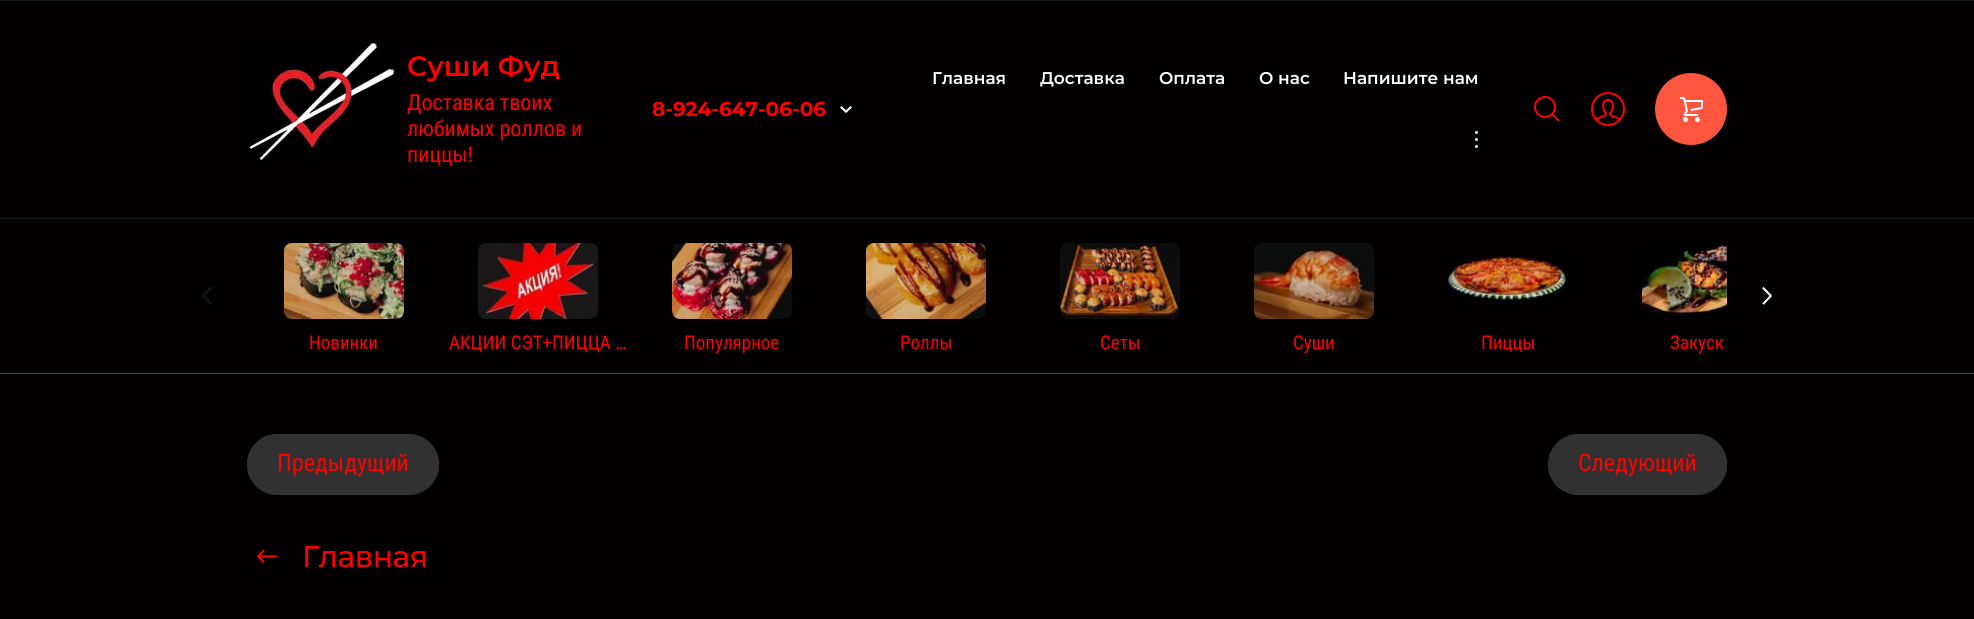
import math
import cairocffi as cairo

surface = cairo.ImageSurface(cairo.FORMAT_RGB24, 1974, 619)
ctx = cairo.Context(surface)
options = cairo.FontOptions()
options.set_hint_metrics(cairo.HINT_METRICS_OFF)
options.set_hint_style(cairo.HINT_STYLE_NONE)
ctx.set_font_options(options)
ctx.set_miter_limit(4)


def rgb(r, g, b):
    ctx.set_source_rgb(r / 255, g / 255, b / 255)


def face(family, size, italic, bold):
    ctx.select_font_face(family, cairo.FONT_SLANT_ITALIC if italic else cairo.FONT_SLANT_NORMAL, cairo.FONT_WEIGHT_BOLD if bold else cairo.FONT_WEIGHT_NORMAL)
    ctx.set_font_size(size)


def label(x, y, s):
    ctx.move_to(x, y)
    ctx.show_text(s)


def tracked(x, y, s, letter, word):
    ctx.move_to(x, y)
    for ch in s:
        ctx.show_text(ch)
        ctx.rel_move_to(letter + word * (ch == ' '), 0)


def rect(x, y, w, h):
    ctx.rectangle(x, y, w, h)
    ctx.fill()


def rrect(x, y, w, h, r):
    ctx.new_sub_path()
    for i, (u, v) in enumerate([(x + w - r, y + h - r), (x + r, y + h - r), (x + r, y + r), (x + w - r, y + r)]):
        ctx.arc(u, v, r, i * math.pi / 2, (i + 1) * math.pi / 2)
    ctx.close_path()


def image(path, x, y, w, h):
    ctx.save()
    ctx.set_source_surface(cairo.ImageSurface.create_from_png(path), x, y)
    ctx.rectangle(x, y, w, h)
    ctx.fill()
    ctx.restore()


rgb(2, 0, 1)
ctx.paint()
rgb(27, 26, 26)
rect(0, 0, 1974, 1)
rect(0, 218, 1974, 1)
image('image0.png', 247, 41, 148, 120)
face('Montserrat SemiBold', 28, 0, 0)
rgb(255, 0, 0)
label(407, 76, 'Суши Фуд')
face('Roboto Condensed', 22, 0, 0)
label(407, 110, 'Доставка твоих')
label(407, 136, 'любимых роллов и')
label(407, 162, 'пиццы!')
face('Montserrat SemiBold', 17, 0, 0)
rgb(255, 255, 255)
label(932, 84, 'Главная')
label(1040, 84, 'Доставка')
label(1159, 84, 'Оплата')
label(1259, 84, 'О нас')
label(1343, 84, 'Напишите нам')
image('image1.png', 1475, 131, 3, 17)
image('image2.png', 1534, 96, 26, 26)
image('image3.png', 1591, 92, 34, 34)
rgb(255, 86, 64)
ctx.arc(1691, 109, 36, 0, 2 * math.pi)
ctx.fill()
image('image4.png', 1680, 97, 23, 25)
face('Montserrat', 20, 0, 1)
rgb(255, 0, 0)
label(652, 116, '8-924-647-06-06')
image('image5.png', 840, 106, 12, 7)
image('image6.png', 202, 287, 10, 18)
image('image7.png', 1762, 287, 10, 18)
image('image8.png', 284, 243, 120, 76)
face('Roboto Condensed', 19, 0, 0)
label(309, 349, 'Новинки')
image('image9.png', 478, 243, 120, 76)
label(449, 349, 'АКЦИИ СЭТ+ПИЦЦА …')
image('image10.png', 672, 243, 120, 76)
label(684, 349, 'Популярное')
image('image11.png', 866, 243, 120, 76)
label(900, 349, 'Роллы')
image('image12.png', 1060, 243, 120, 76)
label(1100, 349, 'Сеты')
image('image13.png', 1254, 243, 120, 76)
label(1293, 349, 'Суши')
image('image14.png', 1448, 255, 120, 45)
label(1481, 349, 'Пиццы')
image('image15.png', 1642, 243, 85, 73)
label(1670, 349, 'Закуск')
rect(0, 373, 1974, 1)
rgb(49, 49, 49)
rrect(247, 434, 192, 61, 30.5)
ctx.fill()
rrect(247.5, 434.5, 191, 60, 30)
ctx.set_line_width(1)
ctx.stroke()
face('Roboto Condensed', 24, 0, 0)
rgb(255, 0, 0)
label(277, 471, 'Предыдущий')
rgb(49, 49, 49)
rrect(1548, 434, 179, 61, 30.5)
ctx.fill()
rrect(1548.5, 434.5, 178, 60, 30)
ctx.stroke()
rgb(255, 0, 0)
label(1578, 471, 'Следующий')
image('image16.png', 257, 549, 20, 14)
face('Montserrat Medium', 30, 0, 0)
tracked(302, 567, 'Главная', -0.5, 0)
surface.write_to_png('render.png')
